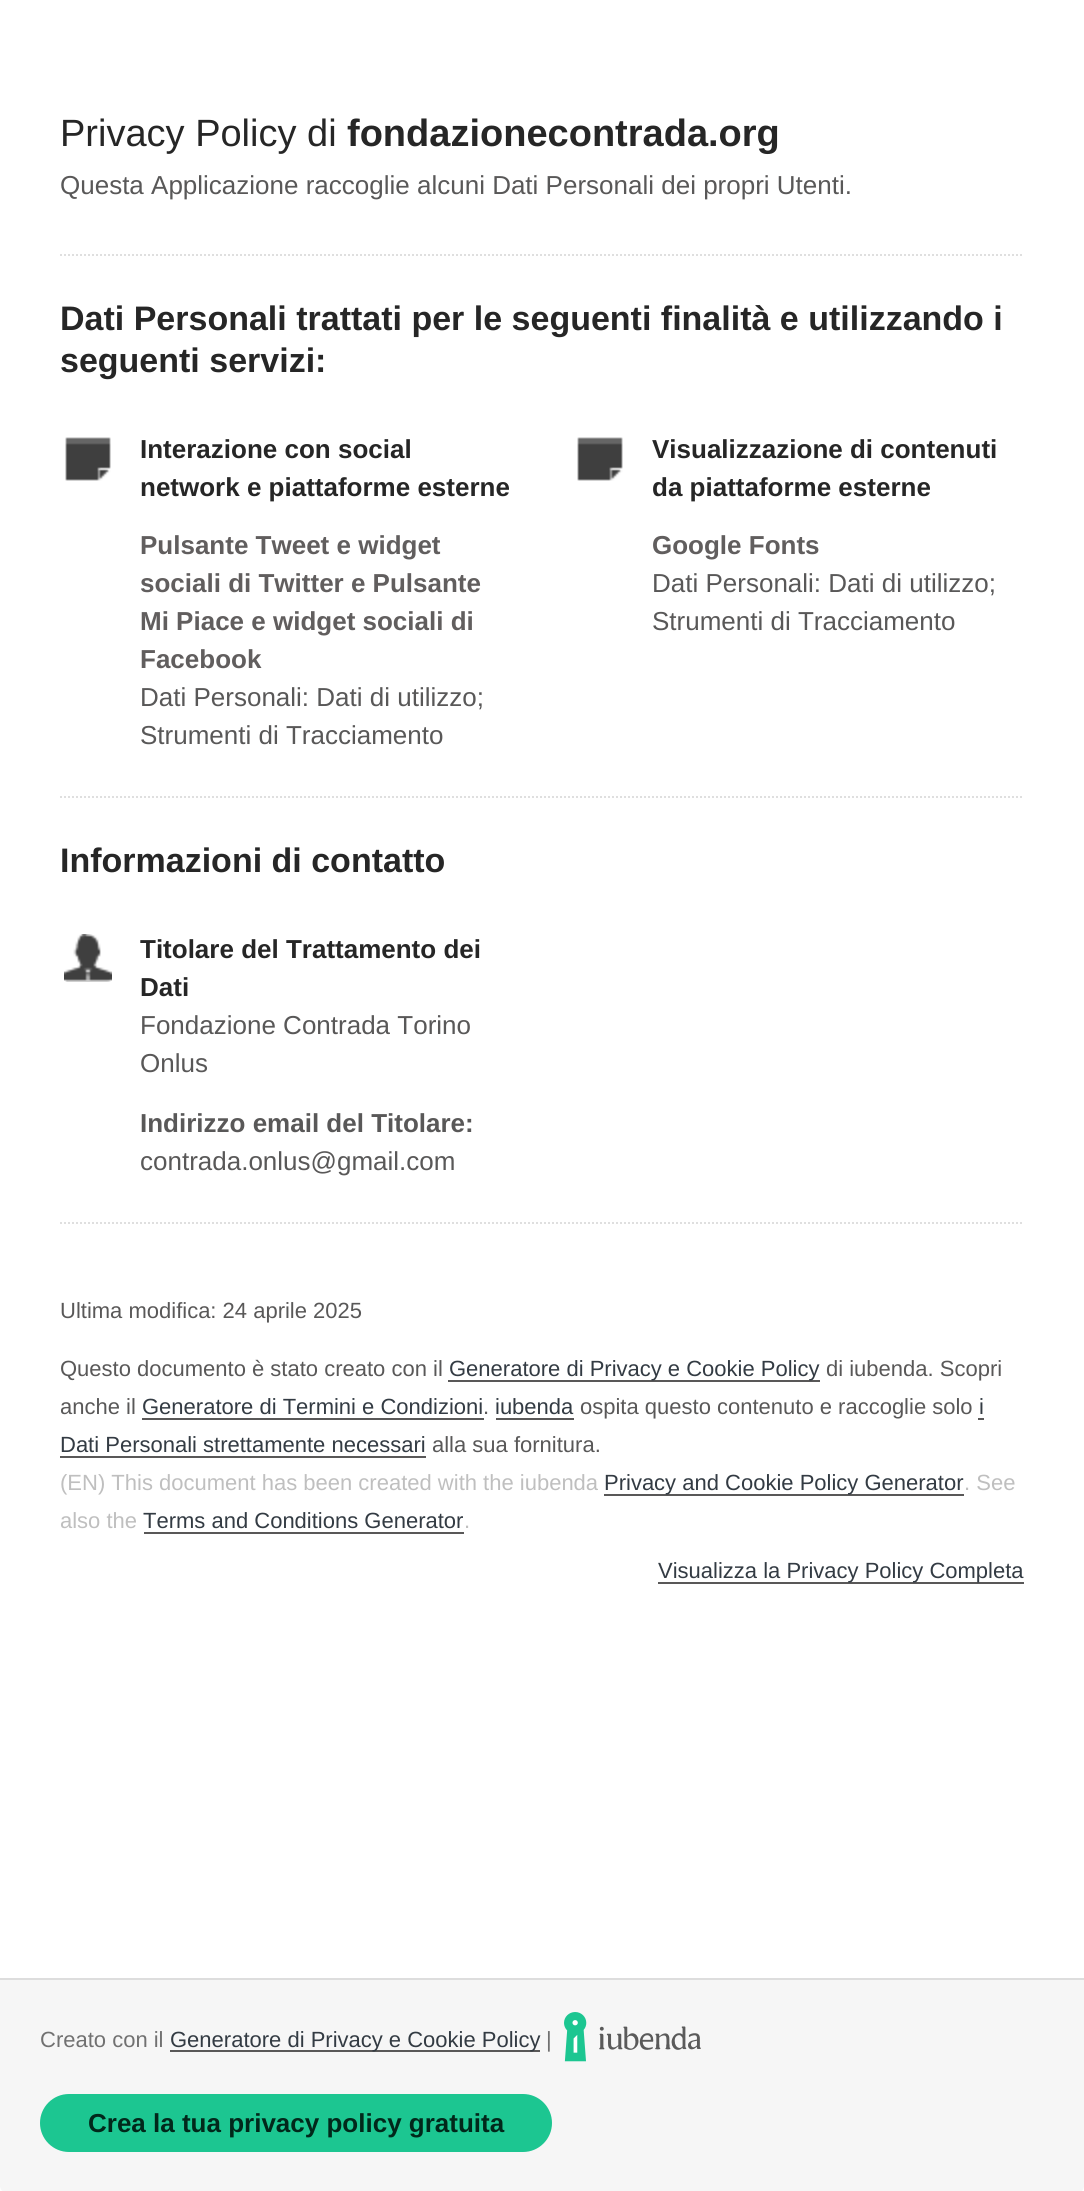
import math
import cairocffi as cairo

surface = cairo.ImageSurface(cairo.FORMAT_RGB24, 1084, 2191)
ctx = cairo.Context(surface)
options = cairo.FontOptions()
options.set_hint_metrics(cairo.HINT_METRICS_OFF)
options.set_hint_style(cairo.HINT_STYLE_NONE)
ctx.set_font_options(options)
ctx.set_miter_limit(4)


def rgb(r, g, b):
    ctx.set_source_rgb(r / 255, g / 255, b / 255)


def face(family, size, italic, bold):
    ctx.select_font_face(family, cairo.FONT_SLANT_ITALIC if italic else cairo.FONT_SLANT_NORMAL, cairo.FONT_WEIGHT_BOLD if bold else cairo.FONT_WEIGHT_NORMAL)
    ctx.set_font_size(size)


def label(x, y, s):
    ctx.move_to(x, y)
    ctx.show_text(s)


def rect(x, y, w, h):
    ctx.rectangle(x, y, w, h)
    ctx.fill()


def rrect(x, y, w, h, r):
    ctx.new_sub_path()
    for i, (u, v) in enumerate([(x + w - r, y + h - r), (x + r, y + h - r), (x + r, y + r), (x + w - r, y + r)]):
        ctx.arc(u, v, r, i * math.pi / 2, (i + 1) * math.pi / 2)
    ctx.close_path()


def image(path, x, y, w, h):
    ctx.save()
    ctx.set_source_surface(cairo.ImageSurface.create_from_png(path), x, y)
    ctx.rectangle(x, y, w, h)
    ctx.fill()
    ctx.restore()


rgb(255, 255, 255)
ctx.paint()
ctx.new_path()
ctx.move_to(60, 255)
ctx.line_to(1024, 255)
rgb(223, 223, 223)
ctx.set_dash([2, 2])
ctx.stroke()
face('Liberation Sans', 38, 0, 0)
rgb(38, 38, 38)
label(60, 146, 'Privacy Policy di')
face('Liberation Sans', 38, 0, 1)
label(347, 146, 'fondazionecontrada.org')
face('Liberation Sans', 26, 0, 0)
rgb(89, 88, 88)
label(60, 194, 'Questa Applicazione raccoglie alcuni Dati Personali dei propri Utenti.')
face('Liberation Sans', 34, 0, 1)
rgb(38, 38, 38)
label(60, 330, 'Dati Personali trattati per le seguenti finalità e utilizzando i')
label(60, 372, 'seguenti servizi:')
ctx.new_path()
ctx.move_to(60, 797)
ctx.line_to(1024, 797)
rgb(223, 223, 223)
ctx.stroke()
image('image0.png', 65, 437, 46, 44)
face('Liberation Sans', 26, 0, 1)
rgb(38, 38, 38)
label(140, 458, 'Interazione con social')
label(140, 496, 'network e piattaforme esterne')
rgb(97, 94, 94)
label(140, 554, 'Pulsante Tweet e widget')
label(140, 592, 'sociali di Twitter e Pulsante')
label(140, 630, 'Mi Piace e widget sociali di')
label(140, 668, 'Facebook')
face('Liberation Sans', 26, 0, 0)
rgb(89, 88, 88)
label(140, 706, 'Dati Personali: Dati di utilizzo;')
label(140, 744, 'Strumenti di Tracciamento')
image('image0.png', 577, 437, 46, 44)
face('Liberation Sans', 26, 0, 1)
rgb(38, 38, 38)
label(652, 458, 'Visualizzazione di contenuti')
label(652, 496, 'da piattaforme esterne')
rgb(97, 94, 94)
label(652, 554, 'Google Fonts')
face('Liberation Sans', 26, 0, 0)
rgb(89, 88, 88)
label(652, 592, 'Dati Personali: Dati di utilizzo;')
label(652, 630, 'Strumenti di Tracciamento')
face('Liberation Sans', 34, 0, 1)
rgb(38, 38, 38)
label(60, 872, 'Informazioni di contatto')
ctx.new_path()
ctx.move_to(60, 1223)
ctx.line_to(1024, 1223)
rgb(223, 223, 223)
ctx.stroke()
image('image1.png', 64, 934, 48, 48)
face('Liberation Sans', 26, 0, 1)
rgb(38, 38, 38)
label(140, 958, 'Titolare del Trattamento dei')
label(140, 996, 'Dati')
face('Liberation Sans', 26, 0, 0)
rgb(89, 88, 88)
label(140, 1034, 'Fondazione Contrada Torino')
label(140, 1072, 'Onlus')
face('Liberation Sans', 26, 0, 1)
label(140, 1132, 'Indirizzo email del Titolare:')
face('Liberation Sans', 26, 0, 0)
label(140, 1170, 'contrada.onlus@gmail.com')
face('Liberation Sans', 22, 0, 0)
label(60, 1318, 'Ultima modifica: 24 aprile 2025')
label(60, 1376, 'Questo documento è stato creato con il')
rect(448, 1380, 372, 2)
rgb(51, 59, 67)
label(449, 1376, 'Generatore di Privacy e Cookie Policy')
rgb(89, 88, 88)
label(826, 1376, 'di iubenda. Scopri')
label(60, 1414, 'anche il')
rgb(51, 59, 67)
label(142, 1414, 'Generatore di Termini e Condizioni')
rgb(89, 88, 88)
rect(142, 1418, 342, 2)
label(483, 1414, '.')
rgb(51, 59, 67)
label(495, 1414, 'iubenda')
rgb(89, 88, 88)
rect(496, 1418, 78, 2)
label(580, 1414, 'ospita questo contenuto e raccoglie solo')
rgb(51, 59, 67)
label(979, 1414, 'i')
rgb(89, 88, 88)
rect(978, 1418, 6, 2)
rgb(51, 59, 67)
label(60, 1452, 'Dati Personali strettamente necessari')
rgb(89, 88, 88)
rect(60, 1456, 366, 2)
label(432, 1452, 'alla sua fornitura.')
rgb(191, 191, 191)
label(60, 1490, '(EN) This document has been created with the iubenda')
rgb(89, 88, 88)
rect(604, 1494, 360, 2)
rgb(51, 59, 67)
label(604, 1490, 'Privacy and Cookie Policy Generator')
rgb(191, 191, 191)
label(964, 1490, '. See')
label(60, 1528, 'also the')
rgb(51, 59, 67)
label(143, 1528, 'Terms and Conditions Generator')
rgb(191, 191, 191)
label(464, 1528, '.')
rgb(89, 88, 88)
rect(144, 1532, 320, 2)
rect(658, 1582, 366, 2)
rgb(51, 59, 67)
label(658, 1578, 'Visualizza la Privacy Policy Completa')
rgb(246, 246, 246)
ctx.new_path()
ctx.move_to(0, 1978)
ctx.line_to(1084, 1978)
ctx.line_to(1084, 2186)
ctx.curve_to(1084, 2189.5, 1081.5, 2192, 1078, 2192)
ctx.line_to(6, 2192)
ctx.curve_to(2.5, 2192, 0, 2189.5, 0, 2186)
ctx.close_path()
ctx.fill()
rgb(221, 221, 221)
rect(0, 1978, 1084, 2)
rgb(113, 113, 113)
label(40, 2047, 'Creato con il')
rgb(89, 88, 88)
rect(170, 2050, 370, 2)
rgb(51, 59, 67)
label(170, 2047, 'Generatore di Privacy e Cookie Policy')
rgb(113, 113, 113)
label(546, 2047, '|')
image('image2.png', 564, 2012, 137, 50)
rgb(28, 198, 145)
rrect(40, 2094, 512, 58, 29)
ctx.fill()
face('Liberation Sans', 26, 0, 1)
rgb(1, 40, 27)
label(88, 2132, 'Crea la tua privacy policy gratuita')
surface.write_to_png('render.png')
